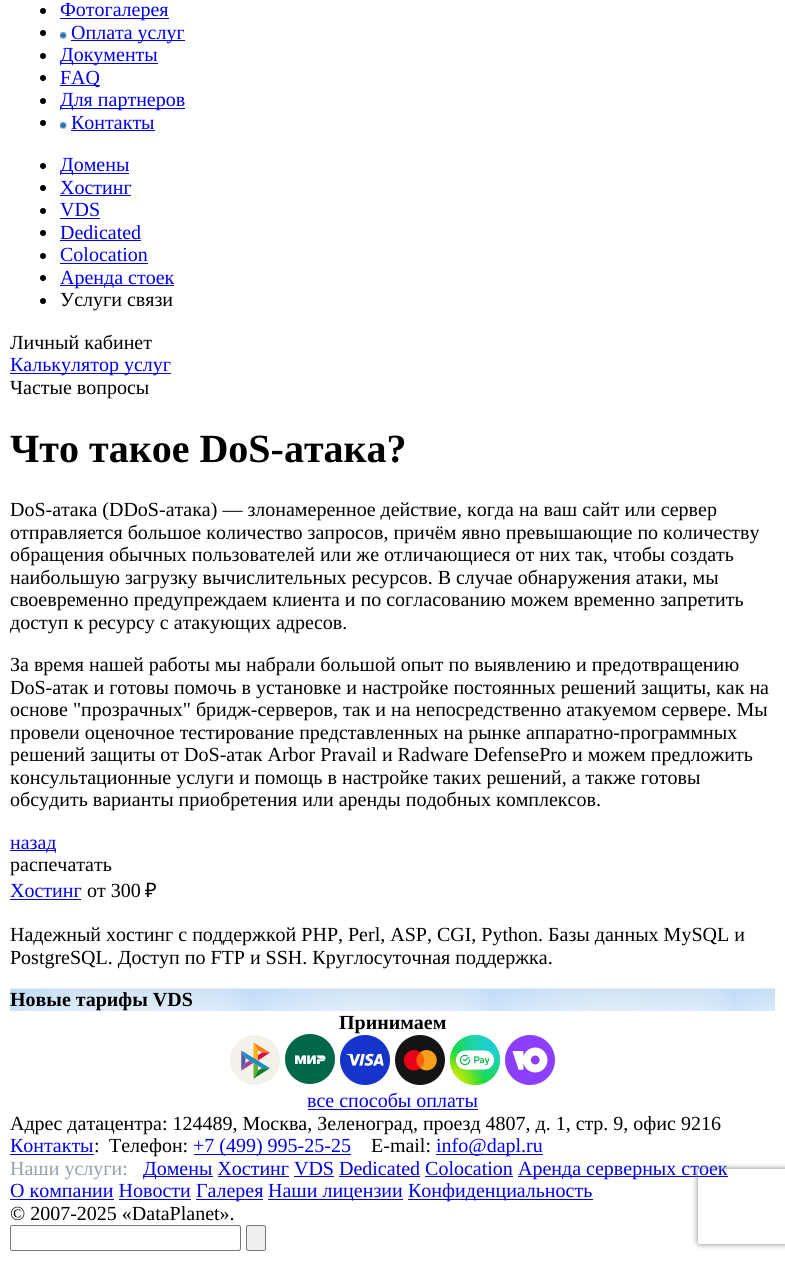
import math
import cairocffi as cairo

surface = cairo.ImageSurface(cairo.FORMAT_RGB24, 785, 1261)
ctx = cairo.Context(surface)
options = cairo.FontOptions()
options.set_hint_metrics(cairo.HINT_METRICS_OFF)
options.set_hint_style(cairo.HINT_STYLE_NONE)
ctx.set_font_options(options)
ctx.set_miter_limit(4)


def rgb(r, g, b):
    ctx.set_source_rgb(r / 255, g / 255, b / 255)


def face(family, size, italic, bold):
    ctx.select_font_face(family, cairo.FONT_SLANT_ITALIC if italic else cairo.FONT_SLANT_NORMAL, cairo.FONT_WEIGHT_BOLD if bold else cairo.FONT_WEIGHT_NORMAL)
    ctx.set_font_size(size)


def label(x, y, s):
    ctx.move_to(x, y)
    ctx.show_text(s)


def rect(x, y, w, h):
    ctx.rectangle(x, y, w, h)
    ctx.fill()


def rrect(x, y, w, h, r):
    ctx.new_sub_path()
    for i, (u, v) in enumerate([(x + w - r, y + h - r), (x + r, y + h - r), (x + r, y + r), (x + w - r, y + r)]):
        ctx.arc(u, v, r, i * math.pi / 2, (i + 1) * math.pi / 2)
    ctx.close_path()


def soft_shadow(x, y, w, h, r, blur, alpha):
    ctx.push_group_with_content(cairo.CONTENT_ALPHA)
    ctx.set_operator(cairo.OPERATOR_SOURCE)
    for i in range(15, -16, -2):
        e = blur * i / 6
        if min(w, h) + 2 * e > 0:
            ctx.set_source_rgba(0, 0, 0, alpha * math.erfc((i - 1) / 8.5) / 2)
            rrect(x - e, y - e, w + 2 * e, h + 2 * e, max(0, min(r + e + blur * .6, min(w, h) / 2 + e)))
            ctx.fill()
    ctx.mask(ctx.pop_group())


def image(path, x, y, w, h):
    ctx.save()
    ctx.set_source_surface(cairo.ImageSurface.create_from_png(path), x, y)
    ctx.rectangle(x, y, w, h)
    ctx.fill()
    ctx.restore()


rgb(255, 255, 255)
ctx.paint()
rgb(0, 0, 0)
ctx.arc(43, 11, 3, 0, 2 * math.pi)
ctx.fill()
rgb(0, 0, 238)
rect(60, 18, 109, 1)
face('Liberation Serif', 20, 0, 0)
label(60, 16, 'Фотогалерея')
rgb(0, 0, 0)
ctx.new_path()
ctx.arc(43, 33, 3, 0, 2 * math.pi)
ctx.fill()
image('image0.png', 60, 32, 7, 7)
rgb(0, 0, 238)
rect(71, 40, 114, 1)
label(71, 39, 'Оплата услуг')
rgb(0, 0, 0)
ctx.new_path()
ctx.arc(43, 56, 3, 0, 2 * math.pi)
ctx.fill()
rgb(0, 0, 238)
rect(60, 63, 98, 1)
label(60, 61, 'Документы')
rgb(0, 0, 0)
ctx.new_path()
ctx.arc(43, 78, 3, 0, 2 * math.pi)
ctx.fill()
rgb(0, 0, 238)
rect(60, 85, 40, 1)
label(60, 84, 'FAQ')
rgb(0, 0, 0)
ctx.new_path()
ctx.arc(43, 101, 3, 0, 2 * math.pi)
ctx.fill()
rgb(0, 0, 238)
rect(60, 108, 125, 1)
label(60, 106, 'Для партнеров')
rgb(0, 0, 0)
ctx.new_path()
ctx.arc(43, 123, 3, 0, 2 * math.pi)
ctx.fill()
image('image0.png', 60, 122, 7, 7)
rgb(0, 0, 238)
label(71, 129, 'Контакты')
rect(71, 130, 84, 1)
rgb(0, 0, 0)
ctx.new_path()
ctx.arc(43, 166, 3, 0, 2 * math.pi)
ctx.fill()
rgb(0, 0, 238)
rect(60, 173, 69, 1)
label(60, 171, 'Домены')
rgb(0, 0, 0)
ctx.new_path()
ctx.arc(43, 188, 3, 0, 2 * math.pi)
ctx.fill()
rgb(0, 0, 238)
label(60, 194, 'Хостинг')
rect(60, 195, 71, 1)
rgb(0, 0, 0)
ctx.new_path()
ctx.arc(43, 211, 3, 0, 2 * math.pi)
ctx.fill()
rgb(0, 0, 238)
label(60, 216, 'VDS')
rect(60, 218, 40, 1)
rgb(0, 0, 0)
ctx.new_path()
ctx.arc(43, 233, 3, 0, 2 * math.pi)
ctx.fill()
rgb(0, 0, 238)
label(60, 239, 'Dedicated')
rect(60, 240, 81, 1)
rgb(0, 0, 0)
ctx.new_path()
ctx.arc(43, 256, 3, 0, 2 * math.pi)
ctx.fill()
rgb(0, 0, 238)
label(60, 261, 'Colocation')
rect(60, 263, 88, 1)
rgb(0, 0, 0)
ctx.new_path()
ctx.arc(43, 278, 3, 0, 2 * math.pi)
ctx.fill()
rgb(0, 0, 238)
rect(60, 285, 114, 1)
label(60, 284, 'Аренда стоек')
rgb(0, 0, 0)
ctx.new_path()
ctx.arc(43, 301, 3, 0, 2 * math.pi)
ctx.fill()
label(60, 306, 'Услуги связи')
label(10, 349, 'Личный кабинет')
rgb(0, 0, 238)
rect(10, 373, 161, 1)
label(10, 371, 'Калькулятор услуг')
rgb(0, 0, 0)
label(10, 394, 'Частые вопросы')
face('Liberation Serif', 40, 0, 1)
label(10, 462, 'Что такое DoS-атака?')
face('Liberation Serif', 20, 0, 0)
label(10, 516, 'DoS-атака (DDoS-атака) — злонамеренное действие, когда на ваш сайт или сервер')
label(10, 539, 'отправляется большое количество запросов, причём явно превышающие по количеству')
label(10, 561, 'обращения обычных пользователей или же отличающиеся от них так, чтобы создать')
label(10, 584, 'наибольшую загрузку вычислительных ресурсов. В случае обнаружения атаки, мы')
label(10, 606, 'своевременно предупреждаем клиента и по согласованию можем временно запретить')
label(10, 629, 'доступ к ресурсу с атакующих адресов.')
label(10, 671, 'За время нашей работы мы набрали большой опыт по выявлению и предотвращению')
label(10, 694, 'DoS-атак и готовы помочь в установке и настройке постоянных решений защиты, как на')
label(10, 716, 'основе "прозрачных" бридж-серверов, так и на непосредственно атакуемом сервере. Мы')
label(10, 739, 'провели оценочное тестирование представленных на рынке аппаратно-программных')
label(10, 761, 'решений защиты от DoS-атак Arbor Pravail и Radware DefensePro и можем предложить')
label(10, 784, 'консультационные услуги и помощь в настройке таких решений, а также готовы')
label(10, 806, 'обсудить варианты приобретения или аренды подобных комплексов.')
rgb(0, 0, 238)
rect(10, 850, 46, 1)
label(10, 849, 'назад')
rgb(0, 0, 0)
label(10, 871, 'распечатать')
rgb(0, 0, 238)
label(10, 897, 'Хостинг')
rect(10, 899, 71, 1)
rgb(0, 0, 0)
label(87, 897, 'от 300')
face('Noto Sans', 20, 0, 0)
label(145, 897, '₽')
face('Liberation Serif', 20, 0, 0)
label(10, 941, 'Надежный хостинг с поддержкой PHP, Perl, ASP, CGI, Python. Базы данных MySQL и')
label(10, 964, 'PostgreSQL. Доступ по FTP и SSH. Круглосуточная поддержка.')
image('image1.png', 10, 988, 765, 23)
face('Liberation Serif', 20, 0, 1)
label(10, 1006, 'Новые тарифы VDS')
label(339, 1029, 'Принимаем')
image('image2.png', 230, 1035, 50, 50)
image('image3.png', 285, 1034, 50, 50)
image('image4.png', 340, 1035, 50, 50)
image('image5.png', 395, 1035, 50, 50)
image('image6.png', 450, 1035, 50, 50)
image('image7.png', 505, 1035, 50, 50)
face('Liberation Serif', 20, 0, 0)
rgb(0, 0, 238)
label(307, 1107, 'все способы оплаты')
rect(308, 1109, 170, 1)
rgb(0, 0, 0)
label(10, 1130, 'Адрес датацентра: 124489, Москва, Зеленоград, проезд 4807, д. 1, стр. 9, офис 9216')
rgb(0, 0, 238)
label(10, 1152, 'Контакты')
rect(10, 1154, 84, 1)
rgb(0, 0, 0)
label(94, 1152, ':')
label(109, 1152, 'Телефон:')
rgb(0, 0, 238)
rect(194, 1154, 157, 1)
label(193, 1152, '+7 (499) 995-25-25')
rgb(0, 0, 0)
label(371, 1152, 'E-mail:')
rgb(0, 0, 238)
rect(436, 1154, 107, 1)
label(436, 1152, 'info@dapl.ru')
rgb(147, 161, 172)
label(10, 1175, 'Наши услуги:')
rgb(0, 0, 238)
rect(143, 1176, 70, 1)
label(143, 1175, 'Домены Хостинг VDS Dedicated Colocation')
rect(518, 1176, 210, 1)
label(518, 1175, 'Аренда серверных стоек')
rect(218, 1176, 71, 1)
rect(294, 1176, 40, 1)
rect(339, 1176, 81, 1)
rect(425, 1176, 88, 1)
label(10, 1197, 'О компании Новости')
rect(10, 1199, 104, 1)
rect(196, 1199, 67, 1)
label(196, 1197, 'Галерея')
rect(268, 1199, 135, 1)
label(268, 1197, 'Наши лицензии')
rect(408, 1199, 185, 1)
label(408, 1197, 'Конфиденциальность')
rect(119, 1199, 72, 1)
rgb(0, 0, 0)
label(10, 1220, '© 2007-2025 «DataPlanet».')
rrect(10.5, 1225.5, 230, 25, 2)
rgb(118, 118, 118)
ctx.set_line_width(1)
ctx.stroke()
rgb(239, 239, 239)
rrect(246.5, 1225.5, 19, 25, 2)
ctx.fill_preserve()
rgb(118, 118, 118)
ctx.stroke()
ctx.save()
ctx.set_fill_rule(cairo.FILL_RULE_EVEN_ODD)
ctx.new_path()
ctx.move_to(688, 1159)
ctx.line_to(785, 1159)
ctx.line_to(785, 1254)
ctx.line_to(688, 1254)
ctx.close_path()
ctx.move_to(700.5, 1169)
ctx.line_to(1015.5, 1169)
ctx.curve_to(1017, 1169, 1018, 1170, 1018, 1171.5)
ctx.line_to(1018, 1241.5)
ctx.curve_to(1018, 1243, 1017, 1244, 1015.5, 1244)
ctx.line_to(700.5, 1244)
ctx.curve_to(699, 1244, 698, 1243, 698, 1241.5)
ctx.line_to(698, 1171.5)
ctx.curve_to(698, 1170, 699, 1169, 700.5, 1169)
ctx.close_path()
ctx.clip()
rgb(128, 128, 128)
soft_shadow(698, 1169, 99, 75, 2.5, 3, 1)
ctx.restore()
surface.write_to_png('render.png')
